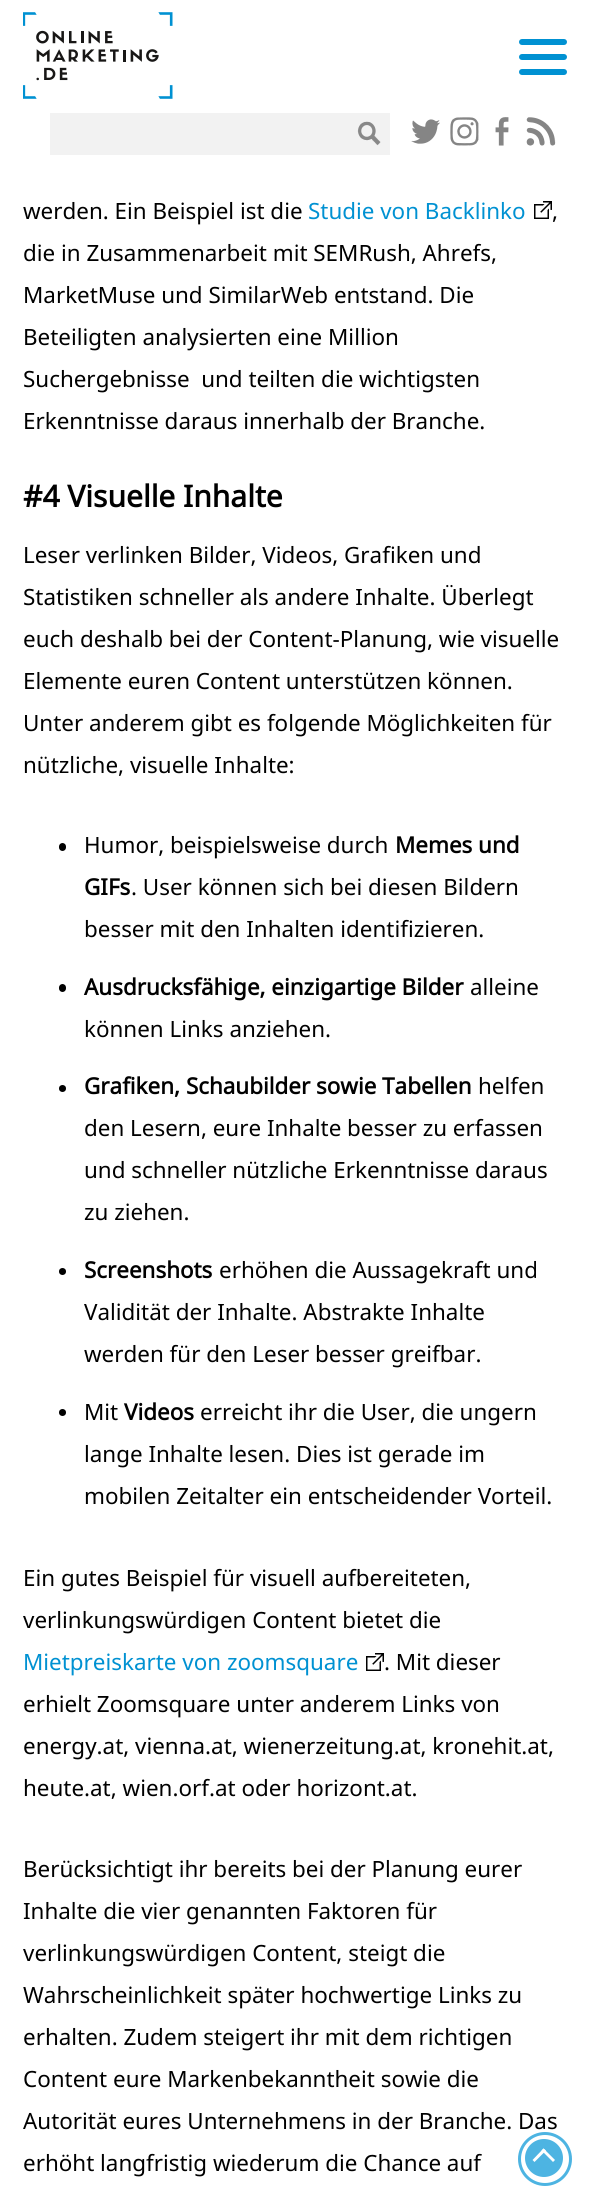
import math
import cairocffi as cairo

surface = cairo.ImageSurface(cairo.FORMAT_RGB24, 589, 2206)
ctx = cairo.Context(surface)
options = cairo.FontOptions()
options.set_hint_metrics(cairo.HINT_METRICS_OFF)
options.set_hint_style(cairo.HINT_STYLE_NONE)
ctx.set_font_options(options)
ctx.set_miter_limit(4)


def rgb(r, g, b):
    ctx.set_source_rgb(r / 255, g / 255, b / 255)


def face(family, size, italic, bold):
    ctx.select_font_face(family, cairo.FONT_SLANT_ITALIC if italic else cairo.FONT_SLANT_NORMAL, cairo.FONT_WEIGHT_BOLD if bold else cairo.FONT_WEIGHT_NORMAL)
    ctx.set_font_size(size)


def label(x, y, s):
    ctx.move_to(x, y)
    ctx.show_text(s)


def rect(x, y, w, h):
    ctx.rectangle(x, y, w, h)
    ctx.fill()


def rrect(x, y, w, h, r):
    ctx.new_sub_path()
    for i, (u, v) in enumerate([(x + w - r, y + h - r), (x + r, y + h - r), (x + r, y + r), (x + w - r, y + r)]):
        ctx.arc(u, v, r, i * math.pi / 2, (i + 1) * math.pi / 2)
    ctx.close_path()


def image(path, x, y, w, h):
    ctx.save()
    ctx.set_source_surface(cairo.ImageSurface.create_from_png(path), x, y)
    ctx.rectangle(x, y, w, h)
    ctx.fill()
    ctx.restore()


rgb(255, 255, 255)
ctx.paint()
image('image0.png', 23, 12, 150, 87)
rgb(0, 145, 210)
rrect(519, 39, 48, 6, 3)
ctx.fill()
rrect(519, 54, 48, 6, 3)
ctx.fill()
rrect(519, 69, 48, 6, 3)
ctx.fill()
rgb(242, 242, 242)
rect(50, 113, 340, 42)
image('image3.png', 360, 123, 18, 23)
image('image4.png', 367, 136, 14, 6)
image('image1.png', 357, 121, 24, 23)
image('image2.png', 358, 121, 23, 24)
image('image5.png', 411, 119, 27, 25)
image('image6.png', 411, 119, 29, 25)
image('image10.png', 454, 119, 25, 27)
image('image9.png', 452, 119, 27, 27)
image('image8.png', 450, 119, 29, 27)
image('image7.png', 450, 117, 29, 29)
image('image11.png', 495, 117, 14, 29)
image('image12.png', 526, 117, 30, 28)
image('image13.png', 526, 117, 30, 29)
image('image14.png', 526, 117, 30, 29)
image('image15.png', 526, 117, 30, 29)
face('Noto Sans', 22.4, 0, 0)
rgb(0, 0, 0)
label(23, 219, 'werden. Ein Beispiel ist die')
rgb(0, 145, 210)
label(308, 219, 'Studie von Backlinko')
image('image16.png', 534, 201, 18, 18)
rgb(0, 0, 0)
label(552, 219, ',')
label(23, 261, 'die in Zusammenarbeit mit SEMRush, Ahrefs,')
label(23, 303, 'MarketMuse und SimilarWeb entstand. Die')
label(23, 345, 'Beteiligten analysierten eine Million')
label(23, 387, 'Suchergebnisse  und teilten die wichtigsten')
label(23, 429, 'Erkenntnisse daraus innerhalb der Branche.')
face('Noto Sans', 30, 0, 1)
label(23, 507, '#4 Visuelle Inhalte')
face('Noto Sans', 22.4, 0, 0)
label(23, 563, 'Leser verlinken Bilder, Videos, Grafiken und')
label(23, 605, 'Statistiken schneller als andere Inhalte. Überlegt')
label(23, 647, 'euch deshalb bei der Content-Planung, wie visuelle')
label(23, 689, 'Elemente euren Content unterstützen können.')
label(23, 731, 'Unter anderem gibt es folgende Möglichkeiten für')
label(23, 773, 'nützliche, visuelle Inhalte:')
rrect(59, 843, 7, 8, 3.5)
ctx.fill()
label(84, 853, 'Humor, beispielsweise durch')
face('Noto Sans', 22.4, 0, 1)
label(395, 853, 'Memes und')
label(84, 895, 'GIFs')
face('Noto Sans', 22.4, 0, 0)
label(131, 895, '. User können sich bei diesen Bildern')
label(84, 937, 'besser mit den Inhalten identifizieren.')
rrect(59, 984, 7, 8, 3.5)
ctx.fill()
face('Noto Sans', 22.4, 0, 1)
label(84, 995, 'Ausdrucksfähige, einzigartige Bilder')
face('Noto Sans', 22.4, 0, 0)
label(470, 995, 'alleine')
label(84, 1037, 'können Links anziehen.')
ctx.new_path()
ctx.arc(62.5, 1088.5, 3.5, 0, 2 * math.pi)
ctx.fill()
face('Noto Sans', 22.4, 0, 1)
label(84, 1094, 'Grafiken, Schaubilder sowie Tabellen')
face('Noto Sans', 22.4, 0, 0)
label(478, 1094, 'helfen')
label(84, 1136, 'den Lesern, eure Inhalte besser zu erfassen')
label(84, 1178, 'und schneller nützliche Erkenntnisse daraus')
label(84, 1220, 'zu ziehen.')
ctx.new_path()
ctx.arc(62.5, 1271.5, 3.5, 0, 2 * math.pi)
ctx.fill()
face('Noto Sans', 22.4, 0, 1)
label(84, 1278, 'Screenshots')
face('Noto Sans', 22.4, 0, 0)
label(219, 1278, 'erhöhen die Aussagekraft und')
label(84, 1320, 'Validität der Inhalte. Abstrakte Inhalte')
label(84, 1362, 'werden für den Leser besser greifbar.')
ctx.new_path()
ctx.arc(62.5, 1412.5, 3.5, 0, 2 * math.pi)
ctx.fill()
label(84, 1420, 'Mit')
face('Noto Sans', 22.4, 0, 1)
label(124, 1420, 'Videos')
face('Noto Sans', 22.4, 0, 0)
label(200, 1420, 'erreicht ihr die User, die ungern')
label(84, 1462, 'lange Inhalte lesen. Dies ist gerade im')
label(84, 1504, 'mobilen Zeitalter ein entscheidender Vorteil.')
label(23, 1586, 'Ein gutes Beispiel für visuell aufbereiteten,')
label(23, 1628, 'verlinkungswürdigen Content bietet die')
rgb(0, 145, 210)
label(23, 1670, 'Mietpreiskarte von zoomsquare')
image('image16.png', 366, 1653, 18, 18)
rgb(0, 0, 0)
label(384, 1670, '. Mit dieser')
label(23, 1712, 'erhielt Zoomsquare unter anderem Links von')
label(23, 1754, 'energy.at, vienna.at, wienerzeitung.at, kronehit.at,')
label(23, 1796, 'heute.at, wien.orf.at oder horizont.at.')
label(23, 1877, 'Berücksichtigt ihr bereits bei der Planung eurer')
label(23, 1919, 'Inhalte die vier genannten Faktoren für')
label(23, 1961, 'verlinkungswürdigen Content, steigt die')
label(23, 2003, 'Wahrscheinlichkeit später hochwertige Links zu')
label(23, 2045, 'erhalten. Zudem steigert ihr mit dem richtigen')
label(23, 2087, 'Content eure Markenbekanntheit sowie die')
label(23, 2129, 'Autorität eures Unternehmens in der Branche. Das')
label(23, 2171, 'erhöht langfristig wiederum die Chance auf')
rgb(77, 180, 226)
ctx.new_path()
ctx.arc(544, 2158, 19, 0, 2 * math.pi)
ctx.fill()
ctx.arc(545, 2159, 25.5, 0, 2 * math.pi)
ctx.set_line_width(3)
ctx.stroke()
rgb(255, 255, 255)
ctx.new_path()
ctx.move_to(532.5, 2160)
ctx.line_to(543.5, 2148.5)
ctx.line_to(546, 2150.5)
ctx.line_to(534.5, 2162)
ctx.close_path()
ctx.fill()
ctx.new_path()
ctx.move_to(541.5, 2150.5)
ctx.line_to(543.5, 2148.5)
ctx.line_to(555, 2160)
ctx.line_to(553, 2162)
ctx.close_path()
ctx.fill()
surface.write_to_png('render.png')
